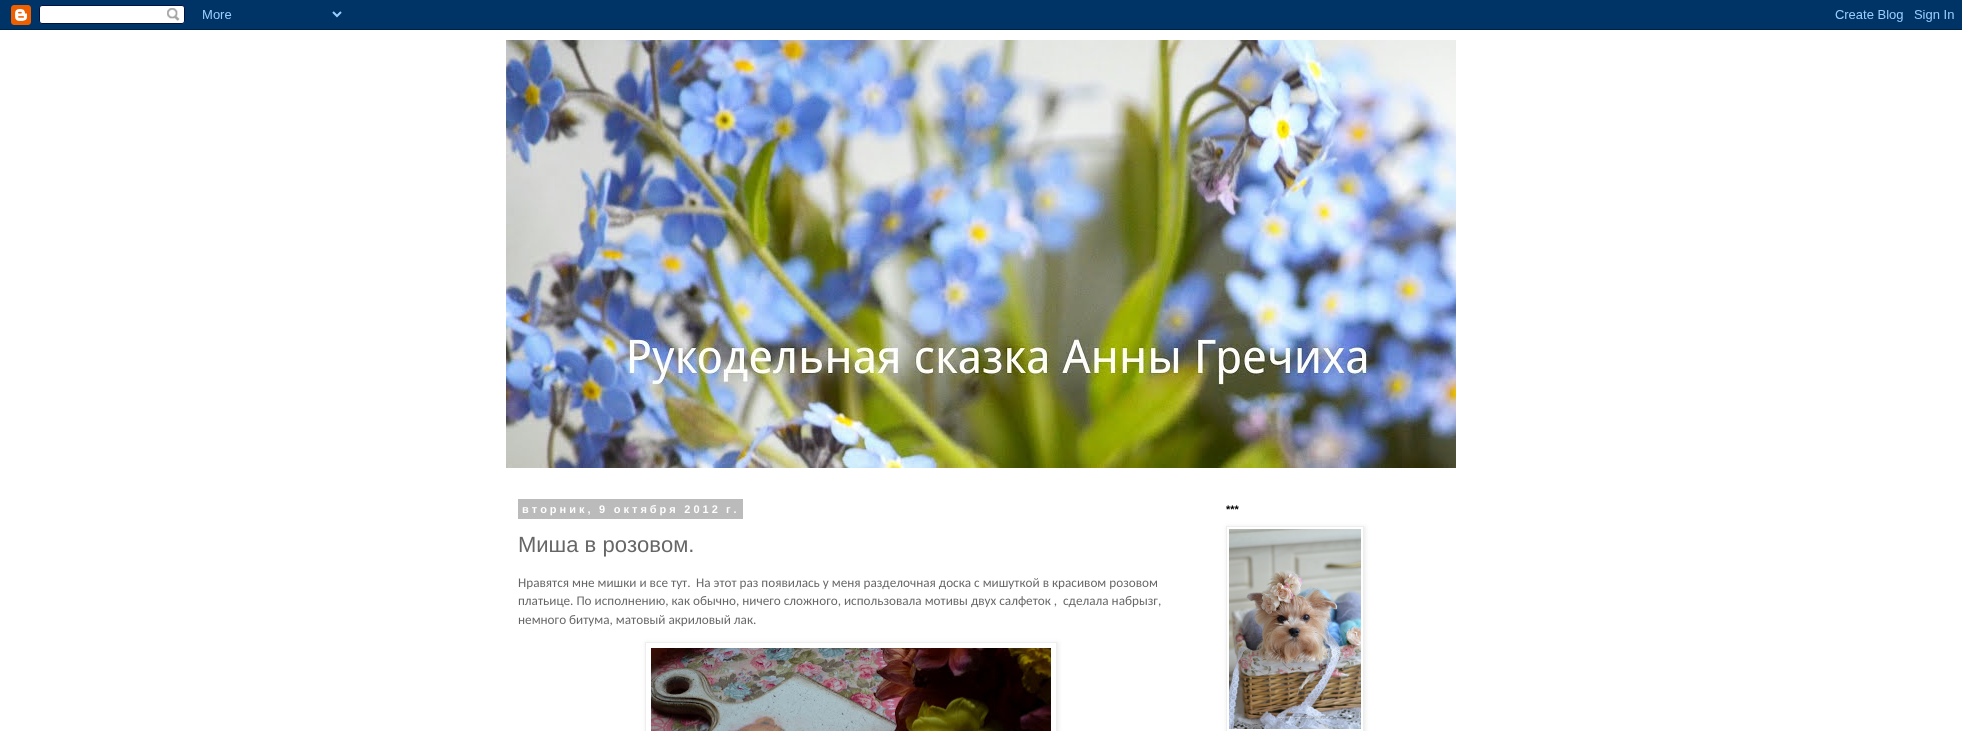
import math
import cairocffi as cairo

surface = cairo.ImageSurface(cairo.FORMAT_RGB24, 1962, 731)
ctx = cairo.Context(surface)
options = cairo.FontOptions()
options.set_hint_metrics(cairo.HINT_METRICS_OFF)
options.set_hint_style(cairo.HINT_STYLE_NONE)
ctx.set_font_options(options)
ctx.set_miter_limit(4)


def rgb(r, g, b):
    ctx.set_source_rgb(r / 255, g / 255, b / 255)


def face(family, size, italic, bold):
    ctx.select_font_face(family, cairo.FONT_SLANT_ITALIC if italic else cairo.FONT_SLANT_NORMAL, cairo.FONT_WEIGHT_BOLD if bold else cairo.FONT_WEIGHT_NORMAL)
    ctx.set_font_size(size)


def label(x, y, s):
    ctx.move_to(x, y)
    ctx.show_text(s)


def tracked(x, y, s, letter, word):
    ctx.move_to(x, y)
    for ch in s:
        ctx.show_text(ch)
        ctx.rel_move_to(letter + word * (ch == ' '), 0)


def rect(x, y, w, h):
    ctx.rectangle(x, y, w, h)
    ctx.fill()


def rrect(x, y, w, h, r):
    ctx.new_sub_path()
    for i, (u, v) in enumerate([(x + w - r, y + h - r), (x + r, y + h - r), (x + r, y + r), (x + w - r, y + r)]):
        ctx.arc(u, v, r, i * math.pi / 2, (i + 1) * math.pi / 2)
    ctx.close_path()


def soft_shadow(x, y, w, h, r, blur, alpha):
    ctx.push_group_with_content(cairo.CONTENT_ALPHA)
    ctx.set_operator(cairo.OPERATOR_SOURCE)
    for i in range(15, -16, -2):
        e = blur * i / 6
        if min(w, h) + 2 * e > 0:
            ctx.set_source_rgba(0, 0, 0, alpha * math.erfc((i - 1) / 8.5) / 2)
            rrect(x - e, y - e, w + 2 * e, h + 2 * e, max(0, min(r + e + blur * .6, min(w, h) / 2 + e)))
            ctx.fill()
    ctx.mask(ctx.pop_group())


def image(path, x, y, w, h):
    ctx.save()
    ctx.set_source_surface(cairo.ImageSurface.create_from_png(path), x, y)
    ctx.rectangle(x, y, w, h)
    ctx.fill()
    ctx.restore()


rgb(255, 255, 255)
ctx.paint()
image('image0.png', 0, 0, 1962, 30)
image('image1.png', 506, 40, 950, 428)
rgb(187, 187, 187)
rect(518, 499, 225, 20)
face('Liberation Sans', 11, 0, 1)
rgb(255, 255, 255)
tracked(522, 513, 'вторник, 9 октября 2012 г.', 3, -0.5)
face('Liberation Sans', 22, 0, 0)
rgb(102, 102, 102)
label(518, 552, 'Миша в розовом.')
face('Carlito', 13.2, 0, 0)
label(518, 587, 'Нравятся мне мишки и все тут.')
label(696, 587, 'На этот раз появилась у меня разделочная доска с мишуткой в красивом розовом')
label(518, 605, 'платьице. По исполнению, как обычно, ничего сложного, использовала мотивы двух салфеток ,')
label(1063, 605, 'сделала набрызг,')
label(518, 624, 'немного битума, матовый акриловый лак.')
ctx.save()
ctx.set_fill_rule(cairo.FILL_RULE_EVEN_ODD)
ctx.new_path()
ctx.move_to(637, 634)
ctx.line_to(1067, 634)
ctx.line_to(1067, 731)
ctx.line_to(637, 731)
ctx.close_path()
ctx.move_to(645, 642)
ctx.line_to(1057, 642)
ctx.line_to(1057, 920)
ctx.line_to(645, 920)
ctx.close_path()
ctx.clip()
rgb(0, 0, 0)
soft_shadow(646, 643, 412, 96, 0, 2.5, 0.1)
ctx.restore()
ctx.rectangle(645.5, 642.5, 411, 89)
rgb(238, 238, 238)
ctx.set_line_width(1)
ctx.stroke()
image('image2.png', 651, 648, 400, 83)
face('Liberation Sans', 11, 0, 1)
rgb(0, 0, 0)
label(1226, 513, '***')
ctx.save()
ctx.set_fill_rule(cairo.FILL_RULE_EVEN_ODD)
ctx.new_path()
ctx.move_to(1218, 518)
ctx.line_to(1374, 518)
ctx.line_to(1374, 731)
ctx.line_to(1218, 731)
ctx.close_path()
ctx.move_to(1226, 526)
ctx.line_to(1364, 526)
ctx.line_to(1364, 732)
ctx.line_to(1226, 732)
ctx.close_path()
ctx.clip()
rgb(0, 0, 0)
soft_shadow(1227, 527, 138, 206, 0, 2.5, 0.1)
ctx.restore()
ctx.rectangle(1226.5, 526.5, 137, 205)
rgb(238, 238, 238)
ctx.stroke()
image('image3.png', 1229, 529, 132, 200)
surface.write_to_png('render.png')
